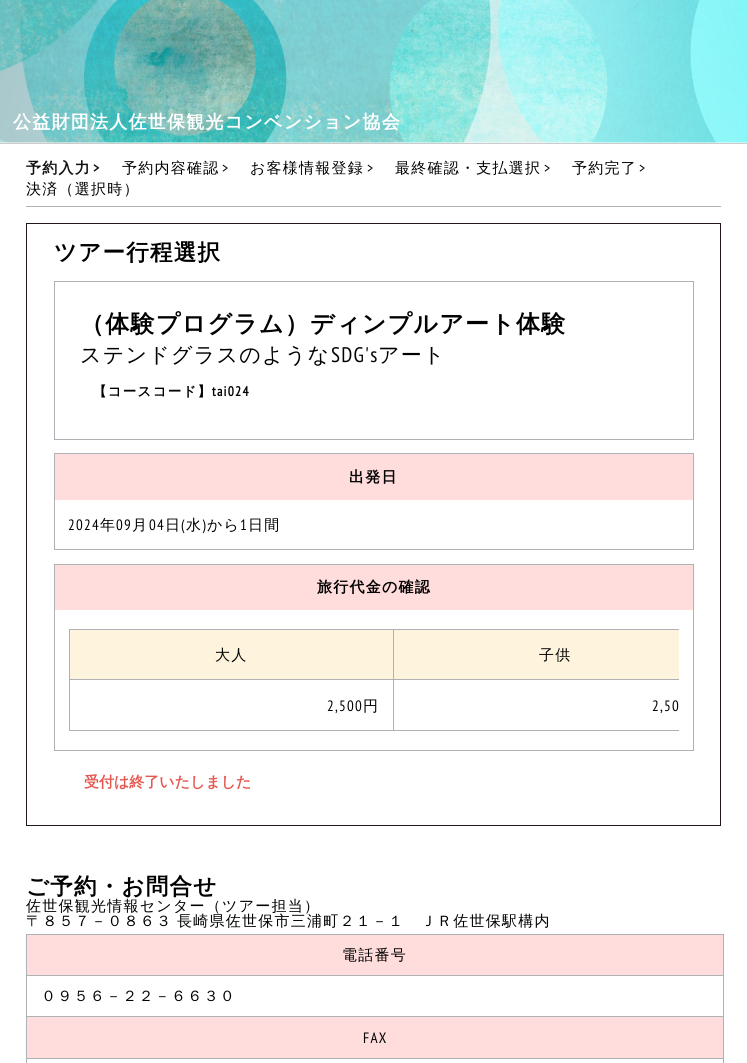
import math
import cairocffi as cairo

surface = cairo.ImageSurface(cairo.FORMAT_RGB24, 747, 1063)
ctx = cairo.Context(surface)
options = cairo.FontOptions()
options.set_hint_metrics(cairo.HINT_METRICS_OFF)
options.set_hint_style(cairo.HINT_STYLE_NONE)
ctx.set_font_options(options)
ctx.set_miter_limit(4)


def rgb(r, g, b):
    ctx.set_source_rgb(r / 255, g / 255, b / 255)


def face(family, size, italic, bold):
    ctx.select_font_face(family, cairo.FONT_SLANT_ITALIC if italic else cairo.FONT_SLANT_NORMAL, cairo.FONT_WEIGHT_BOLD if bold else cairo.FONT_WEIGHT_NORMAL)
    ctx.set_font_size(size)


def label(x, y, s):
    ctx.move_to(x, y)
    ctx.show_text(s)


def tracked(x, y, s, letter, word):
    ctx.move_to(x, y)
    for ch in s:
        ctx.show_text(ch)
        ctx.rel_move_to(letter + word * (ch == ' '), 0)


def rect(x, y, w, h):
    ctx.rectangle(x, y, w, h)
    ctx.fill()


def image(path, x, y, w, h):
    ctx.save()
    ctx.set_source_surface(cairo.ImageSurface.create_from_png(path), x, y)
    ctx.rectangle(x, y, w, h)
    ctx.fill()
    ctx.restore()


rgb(255, 255, 255)
ctx.paint()
image('image0.png', 0, 0, 747, 143)
rgb(204, 204, 204)
rect(0, 143, 747, 1)
face('WenQuanYi Zen Hei', 18, 0, 1)
rgb(255, 255, 255)
tracked(13, 128, '公益財団法人佐世保観光コンベンション協会', 1.25, 0)
rgb(174, 177, 181)
rect(26, 206, 695, 1)
face('WenQuanYi Zen Hei', 15, 0, 1)
rgb(17, 17, 17)
tracked(26, 173, '予約入力', 1.25, 0)
face('PT Sans Narrow', 15, 0, 1)
tracked(93, 173, '>', 1.25, 0)
face('WenQuanYi Zen Hei Medium', 15, 0, 0)
rgb(0, 0, 0)
tracked(122, 173, '予約内容確認', 1.25, 0)
face('PT Sans Narrow', 15, 0, 0)
tracked(222, 173, '>', 1.25, 0)
face('WenQuanYi Zen Hei Medium', 15, 0, 0)
tracked(250, 173, 'お客様情報登録', 1.25, 0)
face('PT Sans Narrow', 15, 0, 0)
tracked(367, 173, '>', 1.25, 0)
face('WenQuanYi Zen Hei Medium', 15, 0, 0)
tracked(395, 173, '最終確認・支払選択', 1.25, 0)
face('PT Sans Narrow', 15, 0, 0)
tracked(544, 173, '>', 1.25, 0)
face('WenQuanYi Zen Hei Medium', 15, 0, 0)
tracked(572, 173, '予約完了', 1.25, 0)
face('PT Sans Narrow', 15, 0, 0)
tracked(639, 173, '>', 1.25, 0)
face('WenQuanYi Zen Hei Medium', 15, 0, 0)
tracked(26, 194, '決済（選択時）', 1.25, 0)
ctx.rectangle(26.5, 223.5, 694, 602)
rgb(35, 24, 21)
ctx.set_line_width(1)
ctx.stroke()
face('WenQuanYi Zen Hei', 22.5, 0, 1)
rgb(0, 0, 0)
tracked(54, 260, 'ツアー行程選択', 1.25, 0)
ctx.rectangle(54.5, 281.5, 639, 158)
rgb(174, 177, 181)
ctx.stroke()
face('WenQuanYi Zen Hei', 24, 0, 1)
rgb(0, 0, 0)
tracked(80, 332, '（体験プログラム）ディンプルアート体験', 1.25, 0)
face('WenQuanYi Zen Hei Medium', 21, 0, 0)
tracked(80, 362, 'ステンドグラスのような', 1.25, 0)
face('PT Sans Narrow', 21, 0, 0)
tracked(331, 362, 'SDG\'s', 1.25, 0)
face('WenQuanYi Zen Hei Medium', 21, 0, 0)
tracked(378, 362, 'アート', 1.25, 0)
face('WenQuanYi Zen Hei', 13.5, 0, 1)
tracked(93, 396, '【コースコード】', 1.25, 0)
face('PT Sans Narrow', 13.5, 0, 1)
tracked(212, 396, 'tai024', 1.25, 0)
ctx.rectangle(54.5, 453.5, 639, 96)
rgb(174, 177, 181)
ctx.stroke()
rgb(255, 221, 220)
rect(55, 454, 638, 46)
face('WenQuanYi Zen Hei', 15, 0, 1)
rgb(0, 0, 0)
tracked(349, 482, '出発日', 1.25, 0)
face('PT Sans Narrow', 15, 0, 0)
tracked(68, 530, '2024', 1.25, 0)
face('WenQuanYi Zen Hei Medium', 15, 0, 0)
tracked(100, 530, '年', 1.25, 0)
face('PT Sans Narrow', 15, 0, 0)
tracked(116, 530, '09', 1.25, 0)
face('WenQuanYi Zen Hei Medium', 15, 0, 0)
tracked(132, 530, '月', 1.25, 0)
face('PT Sans Narrow', 15, 0, 0)
tracked(149, 530, '04', 1.25, 0)
face('WenQuanYi Zen Hei Medium', 15, 0, 0)
tracked(165, 530, '日', 1.25, 0)
face('PT Sans Narrow', 15, 0, 0)
tracked(181, 530, '(', 1.25, 0)
face('WenQuanYi Zen Hei Medium', 15, 0, 0)
tracked(186, 530, '水', 1.25, 0)
face('PT Sans Narrow', 15, 0, 0)
tracked(202, 530, ')', 1.25, 0)
face('WenQuanYi Zen Hei Medium', 15, 0, 0)
tracked(207, 530, 'から', 1.25, 0)
face('PT Sans Narrow', 15, 0, 0)
tracked(240, 530, '1', 1.25, 0)
face('WenQuanYi Zen Hei Medium', 15, 0, 0)
tracked(248, 530, '日間', 1.25, 0)
ctx.rectangle(54.5, 564.5, 639, 186)
rgb(174, 177, 181)
ctx.stroke()
rgb(255, 221, 220)
rect(55, 565, 638, 45)
face('WenQuanYi Zen Hei', 15, 0, 1)
rgb(0, 0, 0)
tracked(317, 592, '旅行代金の確認', 1.25, 0)
rgb(254, 243, 220)
rect(70, 630, 323, 49)
rgb(174, 177, 181)
rect(393, 629, 286, 1)
rect(393, 679, 286, 1)
rect(393, 730, 286, 1)
rect(393, 679, 1, 52)
rect(69, 679, 325, 1)
rect(393, 629, 1, 51)
rect(69, 629, 325, 1)
rect(69, 730, 325, 1)
rect(69, 679, 1, 52)
rect(69, 629, 1, 51)
face('WenQuanYi Zen Hei Medium', 15, 0, 0)
rgb(0, 0, 0)
tracked(215, 660, '大人', 1.25, 0)
rgb(254, 243, 220)
rect(394, 630, 285, 49)
rgb(0, 0, 0)
tracked(539, 660, '子供', 1.25, 0)
face('PT Sans Narrow', 15, 0, 0)
tracked(327, 711, '2,500', 1.25, 0)
face('WenQuanYi Zen Hei Medium', 15, 0, 0)
tracked(363, 711, '円', 1.25, 0)
face('PT Sans Narrow', 15, 0, 0)
tracked(652, 711, '2,50', 1.25, 0)
face('WenQuanYi Zen Hei', 15, 0, 1)
rgb(229, 88, 81)
label(84, 787, '受付は終了いたしました')
face('WenQuanYi Zen Hei', 22.5, 0, 1)
rgb(0, 0, 0)
tracked(26, 894, 'ご予約・お問合せ', 1.25, 0)
face('WenQuanYi Zen Hei Medium', 15, 0, 0)
tracked(26, 911, '佐世保観光情報センター（ツアー担当）', 1.25, 0)
tracked(26, 926, '〒８５７－０８６３ 長崎県佐世保市三浦町２１－１　ＪＲ佐世保駅構内', 1.25, -1)
rgb(255, 221, 220)
ctx.rectangle(26.5, 934.5, 697, 41)
ctx.fill_preserve()
rgb(174, 177, 181)
ctx.stroke()
rgb(0, 0, 0)
tracked(342, 960, '電話番号', 1.25, 0)
ctx.rectangle(26.5, 975.5, 697, 42)
rgb(174, 177, 181)
ctx.stroke()
rgb(0, 0, 0)
tracked(41, 1001, '０９５６－２２－６６３０', 1.25, 0)
rgb(255, 221, 220)
ctx.rectangle(26.5, 1016.5, 697, 42)
ctx.fill_preserve()
rgb(174, 177, 181)
ctx.stroke()
face('PT Sans Narrow', 15, 0, 0)
rgb(0, 0, 0)
tracked(363, 1043, 'FAX', 1.25, 0)
ctx.rectangle(26.5, 1058.5, 697, 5)
rgb(174, 177, 181)
ctx.stroke()
surface.write_to_png('render.png')
